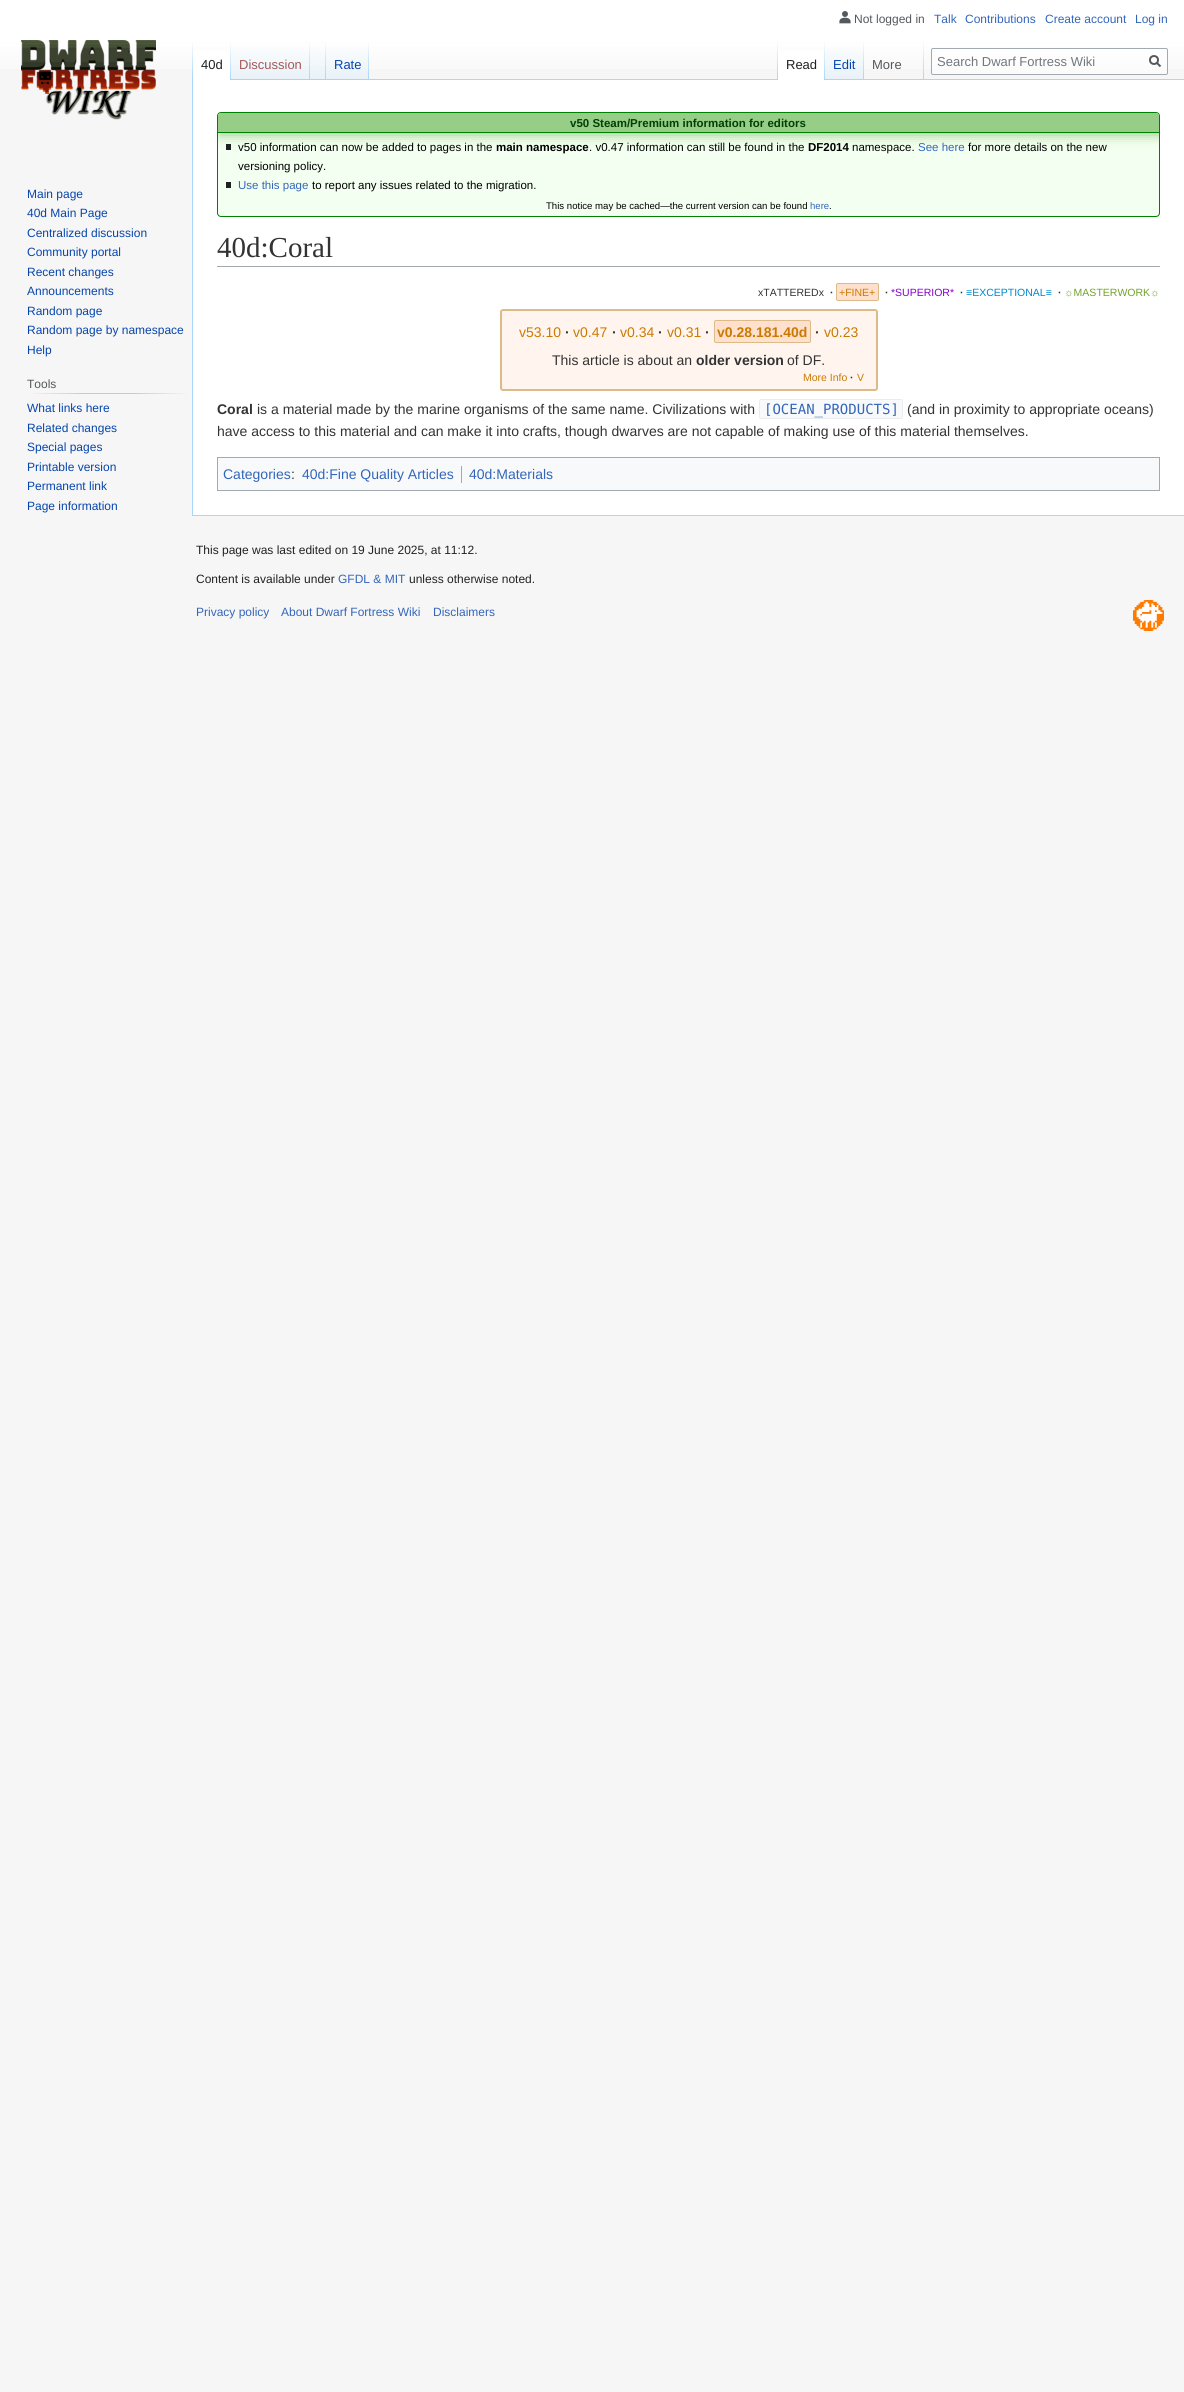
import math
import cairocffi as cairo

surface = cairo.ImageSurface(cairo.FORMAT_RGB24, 1184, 2392)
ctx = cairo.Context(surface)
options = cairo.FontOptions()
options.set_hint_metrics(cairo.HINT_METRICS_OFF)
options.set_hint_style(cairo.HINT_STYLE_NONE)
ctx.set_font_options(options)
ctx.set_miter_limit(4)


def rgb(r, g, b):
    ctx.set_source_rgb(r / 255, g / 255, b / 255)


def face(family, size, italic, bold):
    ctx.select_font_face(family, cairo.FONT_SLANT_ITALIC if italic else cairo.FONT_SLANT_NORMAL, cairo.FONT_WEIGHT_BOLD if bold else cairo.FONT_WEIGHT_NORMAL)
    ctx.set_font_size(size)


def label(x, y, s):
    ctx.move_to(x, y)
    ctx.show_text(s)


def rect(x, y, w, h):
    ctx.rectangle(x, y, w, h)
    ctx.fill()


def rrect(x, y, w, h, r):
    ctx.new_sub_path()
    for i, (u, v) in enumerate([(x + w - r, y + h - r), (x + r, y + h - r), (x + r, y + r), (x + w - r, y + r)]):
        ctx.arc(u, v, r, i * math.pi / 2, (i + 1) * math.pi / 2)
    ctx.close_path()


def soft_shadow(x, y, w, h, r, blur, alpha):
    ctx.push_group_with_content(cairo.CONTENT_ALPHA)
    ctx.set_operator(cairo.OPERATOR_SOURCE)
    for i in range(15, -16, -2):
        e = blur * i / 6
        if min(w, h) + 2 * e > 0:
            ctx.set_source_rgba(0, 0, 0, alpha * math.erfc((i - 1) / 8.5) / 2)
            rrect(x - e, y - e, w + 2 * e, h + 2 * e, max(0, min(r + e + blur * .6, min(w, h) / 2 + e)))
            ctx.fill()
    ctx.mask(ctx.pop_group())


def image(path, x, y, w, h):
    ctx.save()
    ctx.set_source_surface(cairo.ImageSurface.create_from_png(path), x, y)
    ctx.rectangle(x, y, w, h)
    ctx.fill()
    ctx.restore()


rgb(246, 246, 246)
ctx.paint()
gradient = cairo.LinearGradient(592, 0, 592, 80)
gradient.add_color_stop_rgba(0.5, 1, 1, 1, 1)
gradient.add_color_stop_rgba(1, 0.965, 0.965, 0.965, 1)
ctx.set_source(gradient)
rect(0, 0, 1184, 69)
image('image0.png', 839, 11, 12, 13)
face('Liberation Sans', 12, 0, 0)
rgb(84, 89, 93)
label(854, 23, 'Not logged in')
rgb(51, 102, 187)
label(934, 23, 'Talk')
label(965, 23, 'Contributions')
label(1045, 23, 'Create account')
label(1135, 23, 'Log in')
rgb(167, 215, 249)
rect(192, 515, 992, 1)
rect(192, 79, 1, 437)
gradient = cairo.LinearGradient(193, 40, 193, 80)
gradient.add_color_stop_rgba(0, 0.655, 0.843, 0.976, 0)
gradient.add_color_stop_rgba(1, 0.655, 0.843, 0.976, 1)
ctx.set_source(gradient)
rect(192, 40, 1, 40)
rgb(255, 255, 255)
rect(193, 51, 37, 29)
gradient = cairo.LinearGradient(231, 40, 231, 80)
gradient.add_color_stop_rgba(0, 1, 1, 1, 1)
gradient.add_color_stop_rgba(1, 0.655, 0.843, 0.976, 1)
ctx.set_source(gradient)
rect(230, 40, 1, 40)
face('Liberation Sans', 13, 0, 0)
rgb(32, 33, 34)
label(201, 69, '40d')
gradient = cairo.LinearGradient(271, 80, 271, 40)
gradient.add_color_stop_rgba(0, 0.467, 0.757, 0.965, 1)
gradient.add_color_stop_rgba(0.03, 0.91, 0.949, 0.973, 1)
gradient.add_color_stop_rgba(1, 1, 1, 1, 1)
ctx.set_source(gradient)
rect(231, 46, 79, 34)
gradient = cairo.LinearGradient(310, 40, 310, 80)
gradient.add_color_stop_rgba(0, 0.655, 0.843, 0.976, 0)
gradient.add_color_stop_rgba(1, 0.655, 0.843, 0.976, 1)
ctx.set_source(gradient)
rect(309, 40, 1, 40)
rgb(165, 88, 88)
label(239, 69, 'Discussion')
gradient = cairo.LinearGradient(318, 80, 318, 40)
gradient.add_color_stop_rgba(0, 0.467, 0.757, 0.965, 1)
gradient.add_color_stop_rgba(0.03, 0.91, 0.949, 0.973, 1)
gradient.add_color_stop_rgba(1, 1, 1, 1, 1)
ctx.set_source(gradient)
rect(310, 46, 16, 34)
gradient = cairo.LinearGradient(326, 40, 326, 80)
gradient.add_color_stop_rgba(0, 0.655, 0.843, 0.976, 0)
gradient.add_color_stop_rgba(1, 0.655, 0.843, 0.976, 1)
ctx.set_source(gradient)
rect(325, 40, 1, 40)
gradient = cairo.LinearGradient(348, 80, 348, 40)
gradient.add_color_stop_rgba(0, 0.467, 0.757, 0.965, 1)
gradient.add_color_stop_rgba(0.03, 0.91, 0.949, 0.973, 1)
gradient.add_color_stop_rgba(1, 1, 1, 1, 1)
ctx.set_source(gradient)
rect(326, 46, 43, 34)
gradient = cairo.LinearGradient(369, 40, 369, 80)
gradient.add_color_stop_rgba(0, 0.655, 0.843, 0.976, 0)
gradient.add_color_stop_rgba(1, 0.655, 0.843, 0.976, 1)
ctx.set_source(gradient)
rect(368, 40, 1, 40)
rgb(6, 69, 173)
label(334, 69, 'Rate')
rgb(167, 215, 249)
rect(369, 79, 815, 1)
gradient = cairo.LinearGradient(778, 40, 778, 80)
gradient.add_color_stop_rgba(0, 0.655, 0.843, 0.976, 0)
gradient.add_color_stop_rgba(1, 0.655, 0.843, 0.976, 1)
ctx.set_source(gradient)
rect(777, 40, 1, 40)
rgb(255, 255, 255)
rect(778, 51, 46, 29)
gradient = cairo.LinearGradient(825, 40, 825, 80)
gradient.add_color_stop_rgba(0, 1, 1, 1, 1)
gradient.add_color_stop_rgba(1, 0.655, 0.843, 0.976, 1)
ctx.set_source(gradient)
rect(824, 40, 1, 40)
rgb(32, 33, 34)
label(786, 69, 'Read')
gradient = cairo.LinearGradient(845, 80, 845, 40)
gradient.add_color_stop_rgba(0, 0.467, 0.757, 0.965, 1)
gradient.add_color_stop_rgba(0.03, 0.91, 0.949, 0.973, 1)
gradient.add_color_stop_rgba(1, 1, 1, 1, 1)
ctx.set_source(gradient)
rect(825, 46, 39, 33)
gradient = cairo.LinearGradient(864, 40, 864, 80)
gradient.add_color_stop_rgba(0, 0.655, 0.843, 0.976, 0)
gradient.add_color_stop_rgba(1, 0.655, 0.843, 0.976, 1)
ctx.set_source(gradient)
rect(863, 40, 1, 40)
rgb(6, 69, 173)
label(833, 69, 'Edit')
gradient = cairo.LinearGradient(924, 40, 924, 80)
gradient.add_color_stop_rgba(0, 0.655, 0.843, 0.976, 0)
gradient.add_color_stop_rgba(1, 0.655, 0.843, 0.976, 1)
ctx.set_source(gradient)
rect(923, 40, 1, 40)
rgb(84, 89, 93)
label(872, 69, 'More')
ctx.set_source_rgba(1, 1, 1, 0.5)
rrect(931.5, 48.5, 236, 26, 1.5)
ctx.fill_preserve()
rgb(162, 169, 177)
ctx.set_line_width(1)
ctx.stroke()
rgb(114, 119, 125)
label(937, 66, 'Search Dwarf Fortress Wiki')
ctx.new_path()
ctx.move_to(1160.5, 66.5)
ctx.line_to(1156.5, 62.5)
rgb(84, 89, 93)
ctx.set_line_width(2)
ctx.stroke()
ctx.arc(1154, 60, 4, 0, 2 * math.pi)
ctx.stroke()
image('image1.png', 21, 40, 135, 80)
face('Liberation Sans', 12, 0, 0)
rgb(6, 69, 173)
label(27, 198, 'Main page')
label(27, 217, '40d Main Page')
label(27, 237, 'Centralized discussion')
label(27, 256, 'Community portal')
label(27, 276, 'Recent changes')
label(27, 295, 'Announcements')
label(27, 315, 'Random page')
label(27, 334, 'Random page by namespace')
label(27, 354, 'Help')
gradient = cairo.LinearGradient(27, 394, 190, 394)
gradient.add_color_stop_rgba(0, 0.965, 0.965, 0.965, 1)
gradient.add_color_stop_rgba(0.33, 0.784, 0.8, 0.82, 1)
gradient.add_color_stop_rgba(0.66, 0.784, 0.8, 0.82, 1)
gradient.add_color_stop_rgba(1, 0.965, 0.965, 0.965, 1)
ctx.set_source(gradient)
rect(27, 393, 163, 1)
rgb(84, 89, 93)
label(27, 388, 'Tools')
rgb(6, 69, 173)
label(27, 412, 'What links here')
label(27, 432, 'Related changes')
label(27, 451, 'Special pages')
label(27, 471, 'Printable version')
label(27, 490, 'Permanent link')
label(27, 510, 'Page information')
rgb(255, 255, 255)
rect(193, 80, 991, 435)
rgb(243, 255, 240)
rrect(217.5, 112.5, 942, 104, 3.5)
ctx.fill_preserve()
rgb(0, 128, 0)
ctx.set_line_width(1)
ctx.stroke()
ctx.save()
rrect(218, 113, 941, 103, 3)
ctx.clip()
rgb(151, 206, 135)
soft_shadow(220, 115, 941, 20, 0, 6, 1)
ctx.restore()
rgb(151, 206, 135)
ctx.new_path()
ctx.move_to(221, 113)
ctx.line_to(1156, 113)
ctx.curve_to(1157.5, 113, 1159, 114.5, 1159, 116)
ctx.line_to(1159, 133)
ctx.line_to(218, 133)
ctx.line_to(218, 116)
ctx.curve_to(218, 114.5, 219.5, 113, 221, 113)
ctx.close_path()
ctx.fill()
rgb(0, 128, 0)
rect(218, 132, 941, 1)
face('Liberation Sans', 11.5, 0, 1)
rgb(0, 64, 0)
label(570, 127, 'v50 Steam/Premium information for editors')
rgb(32, 33, 34)
rect(226, 144, 5, 6)
face('Liberation Sans', 11.5, 0, 0)
rgb(0, 0, 0)
label(238, 151, 'v50 information can now be added to pages in the')
face('Liberation Sans', 11.5, 0, 1)
label(496, 151, 'main namespace')
face('Liberation Sans', 11.5, 0, 0)
label(589, 151, '. v0.47 information can still be found in the')
face('Liberation Sans', 11.5, 0, 1)
label(808, 151, 'DF2014')
face('Liberation Sans', 11.5, 0, 0)
label(852, 151, 'namespace.')
rgb(51, 102, 187)
label(918, 151, 'See here')
rgb(0, 0, 0)
label(968, 151, 'for more details on the new')
label(238, 170, 'versioning policy.')
rgb(32, 33, 34)
rect(226, 182, 5, 6)
rgb(51, 102, 187)
label(238, 189, 'Use this page')
rgb(0, 0, 0)
label(312, 189, 'to report any issues related to the migration.')
face('Liberation Sans', 9.6, 0, 0)
label(546, 209, 'This notice may be cached—the current version can be found')
rgb(51, 102, 187)
label(810, 209, 'here')
rgb(0, 0, 0)
label(829, 209, '.')
rgb(162, 169, 177)
rect(217, 266, 943, 1)
face('Liberation Serif', 29, 0, 0)
rgb(51, 51, 51)
label(217, 257, '40d:Coral')
face('Liberation Sans', 10.5, 0, 0)
label(758, 296, 'xTATTEREDx')
face('Liberation Sans', 10.5, 0, 1)
label(830, 296, '·')
rgb(255, 224, 204)
rrect(836.5, 283.5, 42, 17, 1.5)
ctx.fill_preserve()
rgb(221, 187, 136)
ctx.stroke()
face('Liberation Sans', 10.5, 0, 0)
rgb(202, 122, 2)
label(839, 296, '+FINE+')
face('Liberation Sans', 10.5, 0, 1)
rgb(51, 51, 51)
label(885, 296, '·')
face('Liberation Sans', 10.5, 0, 0)
rgb(136, 0, 204)
label(891, 296, '*SUPERIOR*')
face('Liberation Sans', 10.5, 0, 1)
rgb(51, 51, 51)
label(960, 296, '·')
face('Liberation Sans', 10.5, 0, 0)
rgb(0, 136, 204)
label(966, 296, '≡EXCEPTIONAL≡')
face('Liberation Sans', 10.5, 0, 1)
rgb(51, 51, 51)
label(1058, 296, '·')
face('Liberation Sans', 10.5, 0, 0)
rgb(114, 163, 41)
label(1064, 296, '☼MASTERWORK☼')
rgb(255, 245, 238)
rrect(501, 310, 376, 80, 2)
ctx.fill_preserve()
rgb(221, 187, 136)
ctx.set_line_width(2)
ctx.stroke()
face('Liberation Sans', 14, 0, 0)
rgb(202, 122, 2)
label(519, 337, 'v53.10')
face('Liberation Sans', 14, 0, 1)
rgb(51, 51, 51)
label(565, 337, '·')
face('Liberation Sans', 14, 0, 0)
rgb(202, 122, 2)
label(573, 337, 'v0.47')
face('Liberation Sans', 14, 0, 1)
rgb(51, 51, 51)
label(612, 337, '·')
face('Liberation Sans', 14, 0, 0)
rgb(202, 122, 2)
label(620, 337, 'v0.34')
face('Liberation Sans', 14, 0, 1)
rgb(51, 51, 51)
label(658, 337, '·')
face('Liberation Sans', 14, 0, 0)
rgb(202, 122, 2)
label(667, 337, 'v0.31')
face('Liberation Sans', 14, 0, 1)
rgb(51, 51, 51)
label(705, 337, '·')
rgb(255, 224, 204)
rrect(714.5, 320.5, 96, 22, 1.5)
ctx.fill_preserve()
rgb(221, 187, 136)
ctx.set_line_width(1)
ctx.stroke()
rgb(202, 122, 2)
label(717, 337, 'v0.28.181.40d')
rgb(51, 51, 51)
label(815, 337, '·')
face('Liberation Sans', 14, 0, 0)
rgb(202, 122, 2)
label(824, 337, 'v0.23')
rgb(51, 51, 51)
label(552, 365, 'This article is about an')
face('Liberation Sans', 14, 0, 1)
label(696, 365, 'older version')
face('Liberation Sans', 14, 0, 0)
label(787, 365, 'of DF.')
face('Liberation Sans', 10.5, 0, 0)
rgb(202, 122, 2)
label(803, 381, 'More Info')
face('Liberation Sans', 10.5, 0, 1)
rgb(51, 51, 51)
label(850, 381, '·')
face('Liberation Sans', 10.5, 0, 0)
rgb(202, 122, 2)
label(857, 381, 'V')
face('Liberation Sans', 14, 0, 1)
rgb(51, 51, 51)
label(217, 414, 'Coral')
face('Liberation Sans', 14, 0, 0)
label(257, 414, 'is a material made by the marine organisms of the same name. Civilizations with')
rgb(248, 249, 250)
rrect(759.5, 399.5, 143, 19, 1.5)
ctx.fill_preserve()
rgb(234, 236, 240)
ctx.stroke()
face('DejaVu Sans Mono', 14, 0, 0)
rgb(51, 102, 187)
label(764, 414, '[OCEAN_PRODUCTS]')
face('Liberation Sans', 14, 0, 0)
rgb(51, 51, 51)
label(907, 414, '(and in proximity to appropriate oceans)')
label(217, 436, 'have access to this material and can make it into crafts, though dwarves are not capable of making use of this material themselves.')
rgb(248, 249, 250)
ctx.rectangle(217.5, 457.5, 942, 33)
ctx.fill_preserve()
rgb(162, 169, 177)
ctx.stroke()
rgb(51, 102, 187)
label(223, 479, 'Categories')
rgb(51, 51, 51)
label(291, 479, ':')
rgb(51, 102, 187)
label(302, 479, '40d:Fine Quality Articles')
rgb(162, 169, 177)
rect(461, 466, 1, 17)
rgb(51, 102, 187)
label(469, 479, '40d:Materials')
face('Liberation Sans', 12, 0, 0)
rgb(32, 33, 34)
label(196, 554, 'This page was last edited on 19 June 2025, at 11:12.')
label(196, 583, 'Content is available under')
rgb(51, 102, 187)
label(338, 583, 'GFDL & MIT')
rgb(32, 33, 34)
label(409, 583, 'unless otherwise noted.')
rgb(51, 102, 187)
label(196, 616, 'Privacy policy')
label(281, 616, 'About Dwarf Fortress Wiki')
label(433, 616, 'Disclaimers')
image('image2.png', 1133, 600, 31, 31)
surface.write_to_png('render.png')
